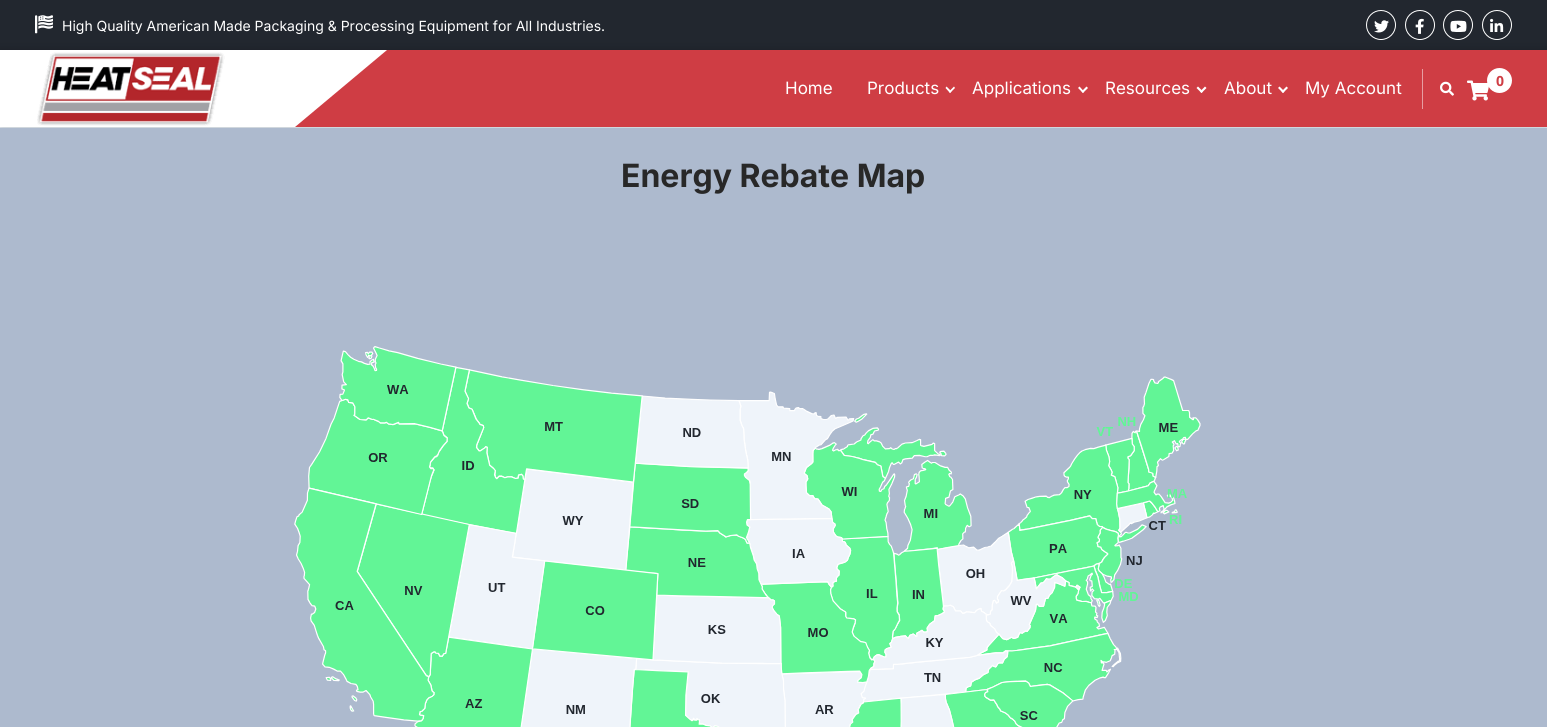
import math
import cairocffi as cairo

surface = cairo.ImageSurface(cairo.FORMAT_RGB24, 1547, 727)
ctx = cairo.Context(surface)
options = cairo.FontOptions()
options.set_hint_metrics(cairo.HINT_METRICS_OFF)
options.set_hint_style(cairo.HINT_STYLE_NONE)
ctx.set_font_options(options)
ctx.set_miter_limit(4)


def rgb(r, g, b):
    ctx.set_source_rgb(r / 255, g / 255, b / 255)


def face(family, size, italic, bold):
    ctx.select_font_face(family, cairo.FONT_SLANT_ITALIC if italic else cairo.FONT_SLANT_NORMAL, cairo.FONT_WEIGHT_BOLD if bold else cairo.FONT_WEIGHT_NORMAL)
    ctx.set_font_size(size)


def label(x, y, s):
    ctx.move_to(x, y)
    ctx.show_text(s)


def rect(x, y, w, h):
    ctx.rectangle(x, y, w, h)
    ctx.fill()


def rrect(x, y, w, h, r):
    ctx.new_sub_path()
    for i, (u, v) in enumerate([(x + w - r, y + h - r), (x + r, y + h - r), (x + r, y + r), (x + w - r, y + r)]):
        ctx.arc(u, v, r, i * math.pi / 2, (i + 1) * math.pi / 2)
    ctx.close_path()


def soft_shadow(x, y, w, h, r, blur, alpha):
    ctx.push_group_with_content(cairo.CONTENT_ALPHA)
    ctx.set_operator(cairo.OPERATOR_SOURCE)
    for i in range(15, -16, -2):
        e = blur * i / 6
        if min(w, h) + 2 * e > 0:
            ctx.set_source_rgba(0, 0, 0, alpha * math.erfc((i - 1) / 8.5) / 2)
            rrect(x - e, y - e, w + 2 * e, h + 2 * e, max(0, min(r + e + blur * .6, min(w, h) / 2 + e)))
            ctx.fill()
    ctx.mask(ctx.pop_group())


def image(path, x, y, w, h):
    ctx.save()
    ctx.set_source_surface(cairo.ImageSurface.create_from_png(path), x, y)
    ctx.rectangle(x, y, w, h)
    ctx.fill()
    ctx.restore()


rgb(230, 237, 244)
ctx.paint()
rgb(34, 39, 47)
rect(0, 0, 1547, 50)
image('image0.png', 35, 15, 18, 19)
face('Inter', 14, 0, 0)
rgb(255, 255, 255)
label(62, 31, 'High Quality American Made Packaging & Processing Equipment for All Industries.')
rgb(0, 0, 0)
soft_shadow(0, 50, 1547, 77, 0, 5, 0.2)
ctx.arc(1381, 25, 14.5, 0, 2 * math.pi)
rgb(255, 255, 255)
ctx.set_line_width(1)
ctx.stroke()
image('image1.png', 1374, 20, 15, 13)
ctx.arc(1420, 25, 14.5, 0, 2 * math.pi)
ctx.stroke()
image('image2.png', 1415, 18, 9, 16)
ctx.arc(1458, 25, 14.5, 0, 2 * math.pi)
ctx.stroke()
image('image3.png', 1450, 20, 17, 12)
ctx.arc(1497, 25, 14.5, 0, 2 * math.pi)
ctx.stroke()
image('image4.png', 1490, 18, 14, 14)
rgb(207, 61, 68)
rect(295, 50, 1252, 77)
rgb(255, 255, 255)
ctx.new_path()
ctx.move_to(-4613, 50)
ctx.line_to(387, 50)
ctx.line_to(295, 127)
ctx.line_to(-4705, 127)
ctx.close_path()
ctx.fill()
image('image5.png', 37, 52, 188, 74)
face('Inter', 17, 0, 0)
label(785, 94, 'Home')
label(867, 94, 'Products')
ctx.new_path()
ctx.move_to(954, 86.5)
ctx.line_to(955, 88)
ctx.line_to(950, 93)
ctx.line_to(949, 91.5)
ctx.close_path()
ctx.fill()
ctx.new_path()
ctx.move_to(946.5, 86.5)
ctx.line_to(951.5, 91.5)
ctx.line_to(950, 93)
ctx.line_to(945.5, 88)
ctx.close_path()
ctx.fill()
label(972, 94, 'Applications')
ctx.new_path()
ctx.move_to(1086.5, 86.5)
ctx.line_to(1088, 88)
ctx.line_to(1083, 93)
ctx.line_to(1081.5, 91.5)
ctx.close_path()
ctx.fill()
ctx.new_path()
ctx.move_to(1079.5, 86.5)
ctx.line_to(1084, 91.5)
ctx.line_to(1083, 93)
ctx.line_to(1078, 88)
ctx.close_path()
ctx.fill()
label(1105, 94, 'Resources')
ctx.new_path()
ctx.move_to(1205, 86.5)
ctx.line_to(1206.5, 88)
ctx.line_to(1201.5, 93)
ctx.line_to(1200, 91.5)
ctx.close_path()
ctx.fill()
ctx.new_path()
ctx.move_to(1198, 86.5)
ctx.line_to(1203, 91.5)
ctx.line_to(1201.5, 93)
ctx.line_to(1196.5, 88)
ctx.close_path()
ctx.fill()
label(1224, 94, 'About')
ctx.new_path()
ctx.move_to(1286.5, 86.5)
ctx.line_to(1288, 88)
ctx.line_to(1283, 93)
ctx.line_to(1281.5, 91.5)
ctx.close_path()
ctx.fill()
ctx.new_path()
ctx.move_to(1279.5, 86.5)
ctx.line_to(1284.5, 91.5)
ctx.line_to(1283, 93)
ctx.line_to(1278, 88)
ctx.close_path()
ctx.fill()
label(1305, 94, 'My Account')
image('image6.png', 1440, 81, 14, 15)
rgb(231, 158, 162)
rect(1422, 69, 1, 40)
image('image7.png', 1467, 80, 22, 21)
rgb(255, 255, 255)
ctx.arc(1499.5, 80.5, 12.5, 0, 2 * math.pi)
ctx.fill()
face('Open Sans', 14, 0, 1)
rgb(207, 61, 68)
label(1496, 86, '0')
rgb(173, 186, 206)
rect(0, 128, 1547, 599)
face('Inter', 32, 0, 1)
rgb(40, 40, 40)
label(621, 187, 'Energy Rebate Map')
image('image8.png', 294, 346, 907, 381)
surface.write_to_png('render.png')
